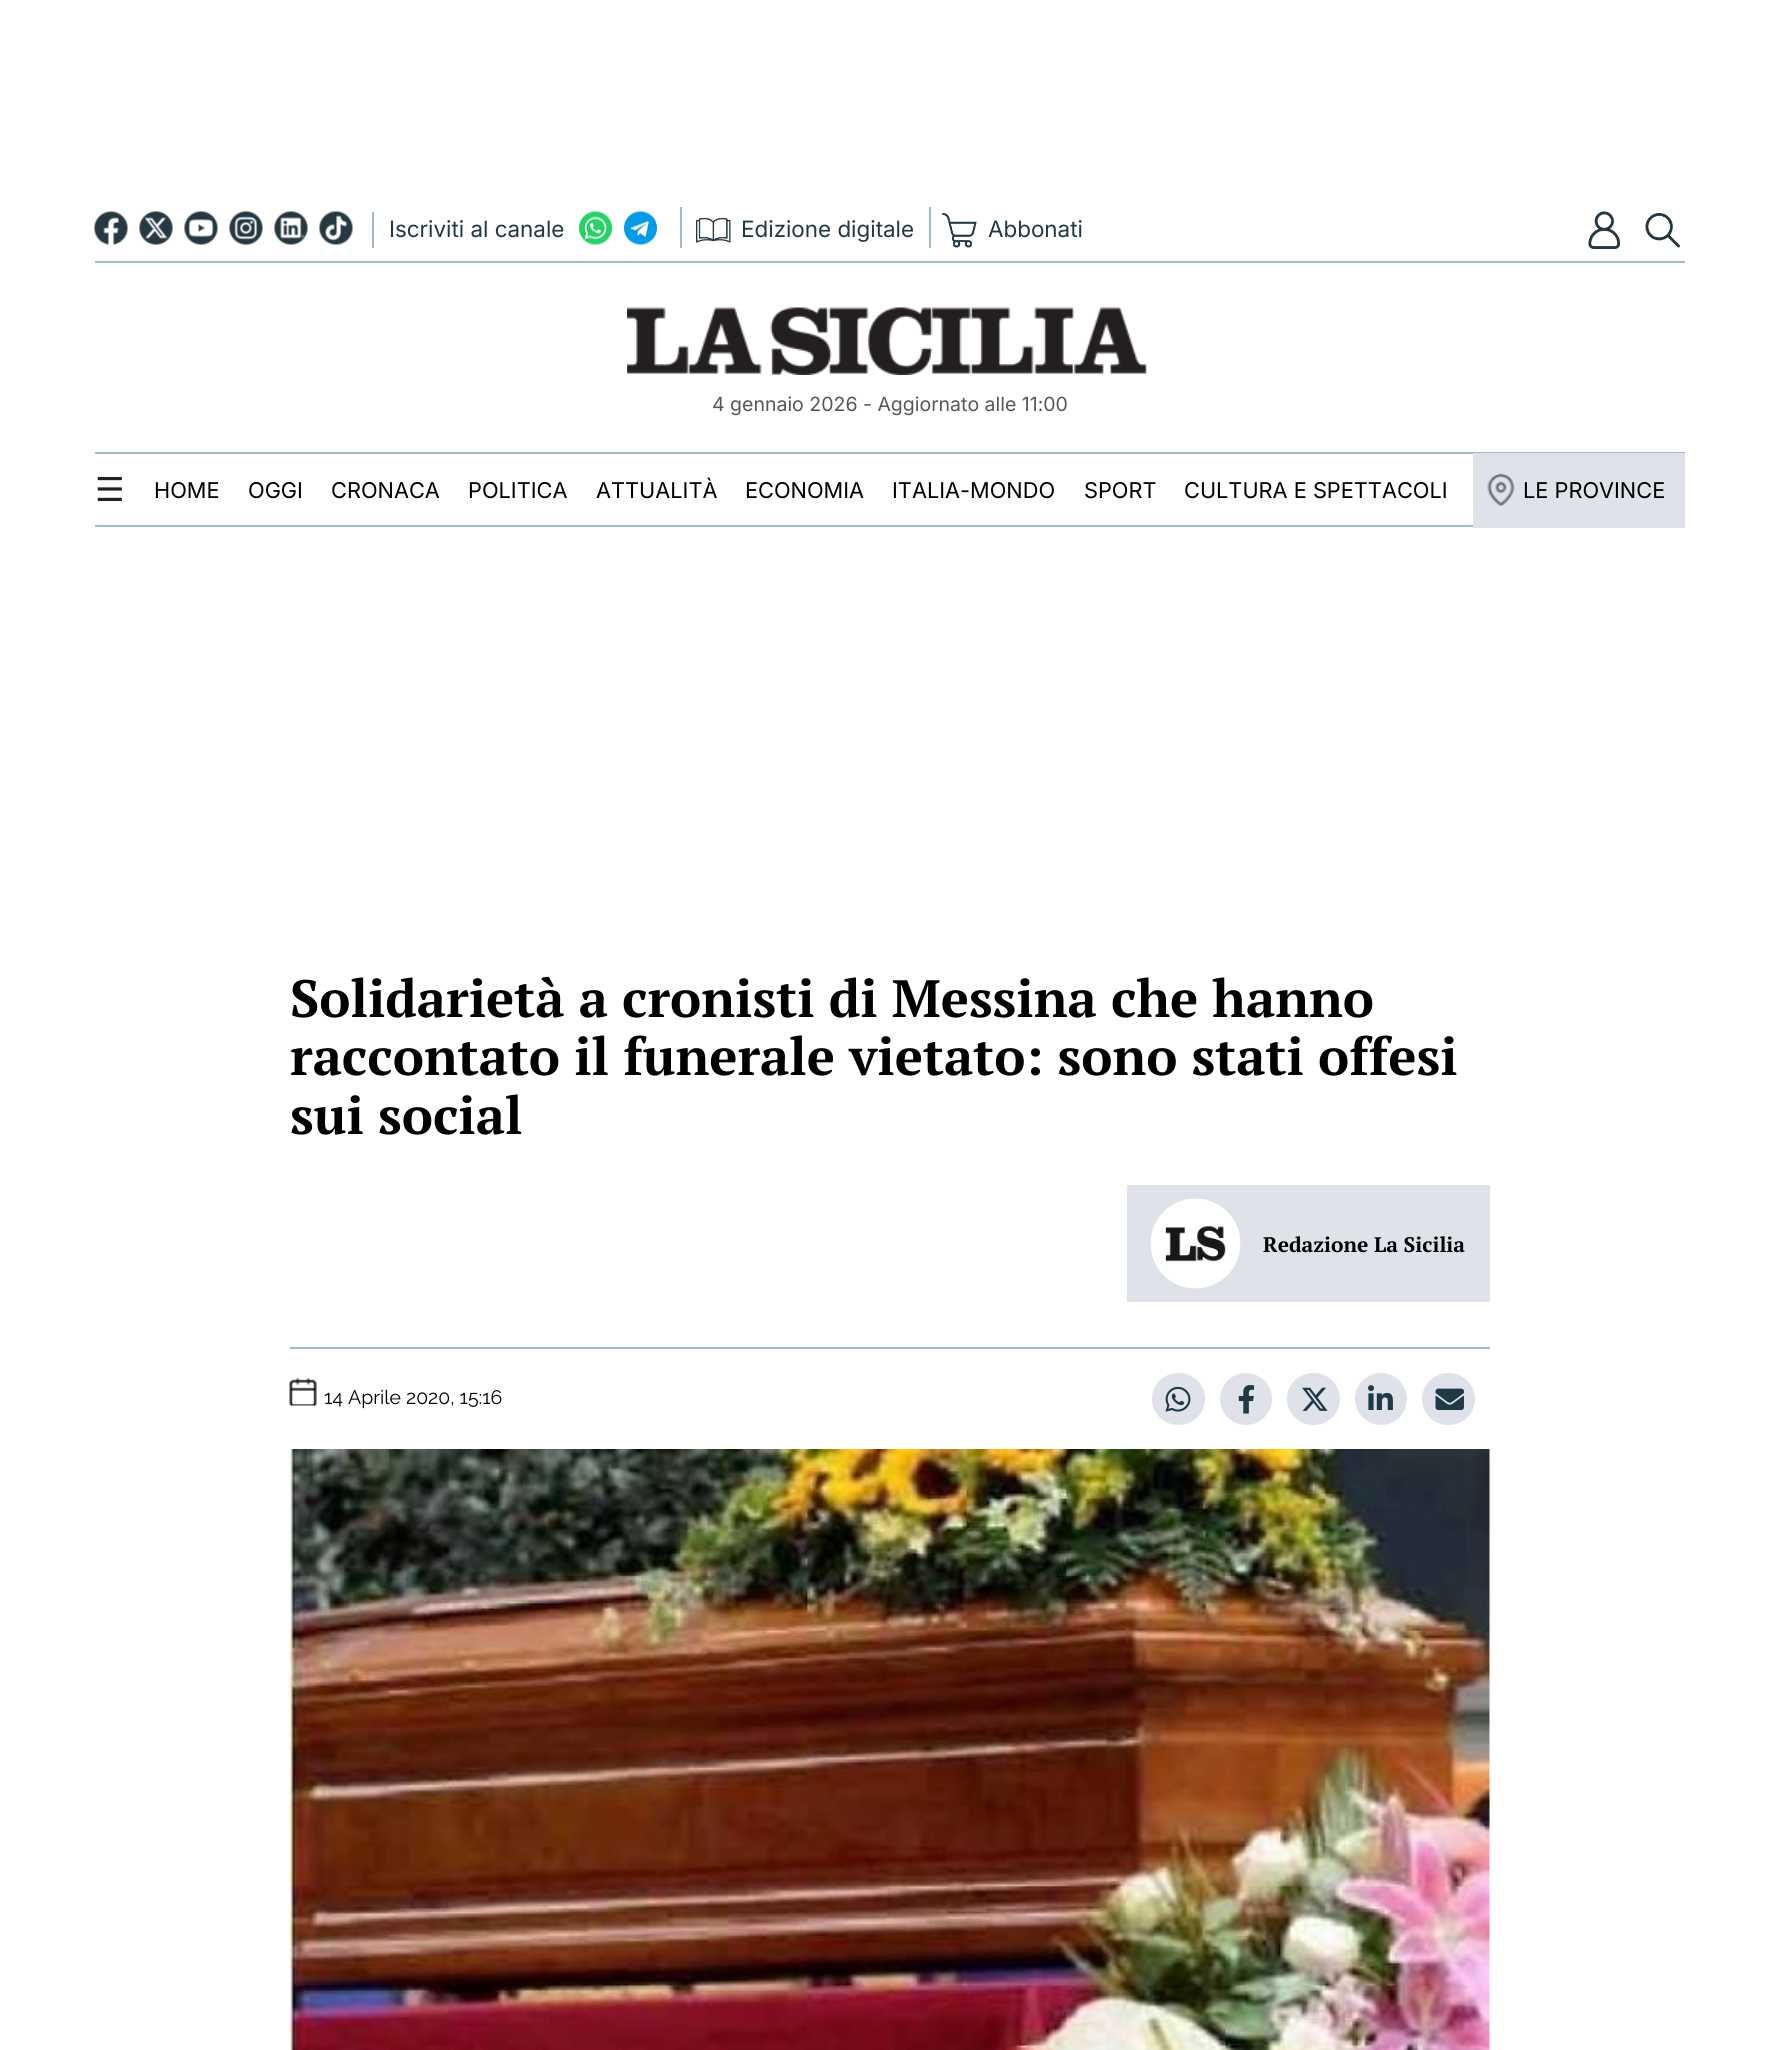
import math
import cairocffi as cairo

surface = cairo.ImageSurface(cairo.FORMAT_RGB24, 1779, 2050)
ctx = cairo.Context(surface)
options = cairo.FontOptions()
options.set_hint_metrics(cairo.HINT_METRICS_OFF)
options.set_hint_style(cairo.HINT_STYLE_NONE)
ctx.set_font_options(options)
ctx.set_miter_limit(4)


def rgb(r, g, b):
    ctx.set_source_rgb(r / 255, g / 255, b / 255)


def face(family, size, italic, bold):
    ctx.select_font_face(family, cairo.FONT_SLANT_ITALIC if italic else cairo.FONT_SLANT_NORMAL, cairo.FONT_WEIGHT_BOLD if bold else cairo.FONT_WEIGHT_NORMAL)
    ctx.set_font_size(size)


def label(x, y, s):
    ctx.move_to(x, y)
    ctx.show_text(s)


def rect(x, y, w, h):
    ctx.rectangle(x, y, w, h)
    ctx.fill()


def rrect(x, y, w, h, r):
    ctx.new_sub_path()
    for i, (u, v) in enumerate([(x + w - r, y + h - r), (x + r, y + h - r), (x + r, y + r), (x + w - r, y + r)]):
        ctx.arc(u, v, r, i * math.pi / 2, (i + 1) * math.pi / 2)
    ctx.close_path()


def image(path, x, y, w, h):
    ctx.save()
    ctx.set_source_surface(cairo.ImageSurface.create_from_png(path), x, y)
    ctx.rectangle(x, y, w, h)
    ctx.fill()
    ctx.restore()


rgb(255, 255, 255)
ctx.paint()
rgb(160, 186, 198)
rect(95, 261, 1590, 2)
image('image0.png', 94, 211, 34, 34)
image('image1.png', 139, 211, 34, 34)
image('image2.png', 184, 211, 34, 34)
image('image3.png', 229, 211, 34, 34)
image('image4.png', 274, 211, 34, 34)
image('image5.png', 319, 211, 34, 34)
rect(372, 212, 2, 36)
face('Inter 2', 22.5, 0, 0)
rgb(31, 57, 69)
label(389, 237, 'Iscriviti al canale')
image('image6.png', 579, 211, 33, 34)
image('image7.png', 624, 211, 33, 34)
rgb(160, 186, 198)
rect(929, 207, 2, 41)
rect(680, 207, 2, 41)
image('image8.png', 696, 218, 35, 25)
rgb(31, 57, 69)
label(741, 237, 'Edizione digitale')
image('image9.png', 942, 213, 35, 35)
label(988, 237, 'Abbonati')
image('image10.png', 1588, 211, 33, 38)
image('image11.png', 1645, 213, 35, 35)
image('image12.png', 627, 307, 521, 68)
face('Inter', 19.5, 0, 0)
rgb(87, 87, 87)
label(712, 411, '4 gennaio 2026 - Aggiornato alle 11:00')
rgb(160, 186, 198)
rect(95, 452, 1590, 2)
rect(95, 525, 1378, 2)
face('DejaVu Sans', 33, 0, 0)
rgb(33, 33, 33)
label(95, 501, '☰')
face('Inter', 21.75, 0, 0)
rgb(0, 0, 0)
label(154, 498, 'HOME')
label(248, 498, 'OGGI')
label(331, 498, 'CRONACA')
label(468, 498, 'POLITICA')
label(596, 498, 'ATTUALITÀ')
label(745, 498, 'ECONOMIA')
label(892, 498, 'ITALIA-MONDO')
label(1084, 498, 'SPORT')
label(1184, 498, 'CULTURA E SPETTACOLI')
rgb(223, 227, 233)
rect(1473, 453, 212, 75)
image('image13.png', 1487, 473, 28, 33)
rgb(0, 0, 0)
label(1523, 498, 'LE PROVINCE')
face('PT Serif', 52.5, 0, 1)
label(290, 1017, 'Solidarietà a cronisti di Messina che hanno')
label(290, 1075, 'raccontato il funerale vietato: sono stati offesi')
label(290, 1134, 'sui social')
rgb(223, 227, 233)
rect(1127, 1185, 363, 117)
image('image14.png', 1150, 1198, 91, 91)
face('PT Serif', 21, 0, 1)
rgb(0, 0, 0)
label(1263, 1252, 'Redazione La Sicilia')
rgb(160, 186, 198)
rect(290, 1347, 1200, 2)
image('image15.png', 289, 1378, 28, 28)
face('Raleway', 19.5, 0, 0)
rgb(0, 0, 0)
label(324, 1404, '14 Aprile 2020, 15:16')
rgb(223, 227, 233)
rrect(1153, 1374, 51, 50, 25)
ctx.fill_preserve()
ctx.stroke()
image('image16.png', 1165, 1386, 26, 26)
ctx.arc(1246, 1399, 25, 0, 2 * math.pi)
ctx.fill_preserve()
ctx.stroke()
image('image17.png', 1238, 1385, 17, 29)
rrect(1288, 1374, 51, 50, 25)
ctx.fill_preserve()
ctx.stroke()
image('image18.png', 1302, 1387, 26, 24)
ctx.arc(1381, 1399, 25, 0, 2 * math.pi)
ctx.fill_preserve()
ctx.stroke()
image('image19.png', 1368, 1385, 25, 25)
rrect(1423, 1374, 51, 50, 25)
ctx.fill_preserve()
ctx.stroke()
image('image20.png', 1435, 1388, 29, 22)
image('image21.png', 289, 1449, 1201, 601)
surface.write_to_png('render.png')
